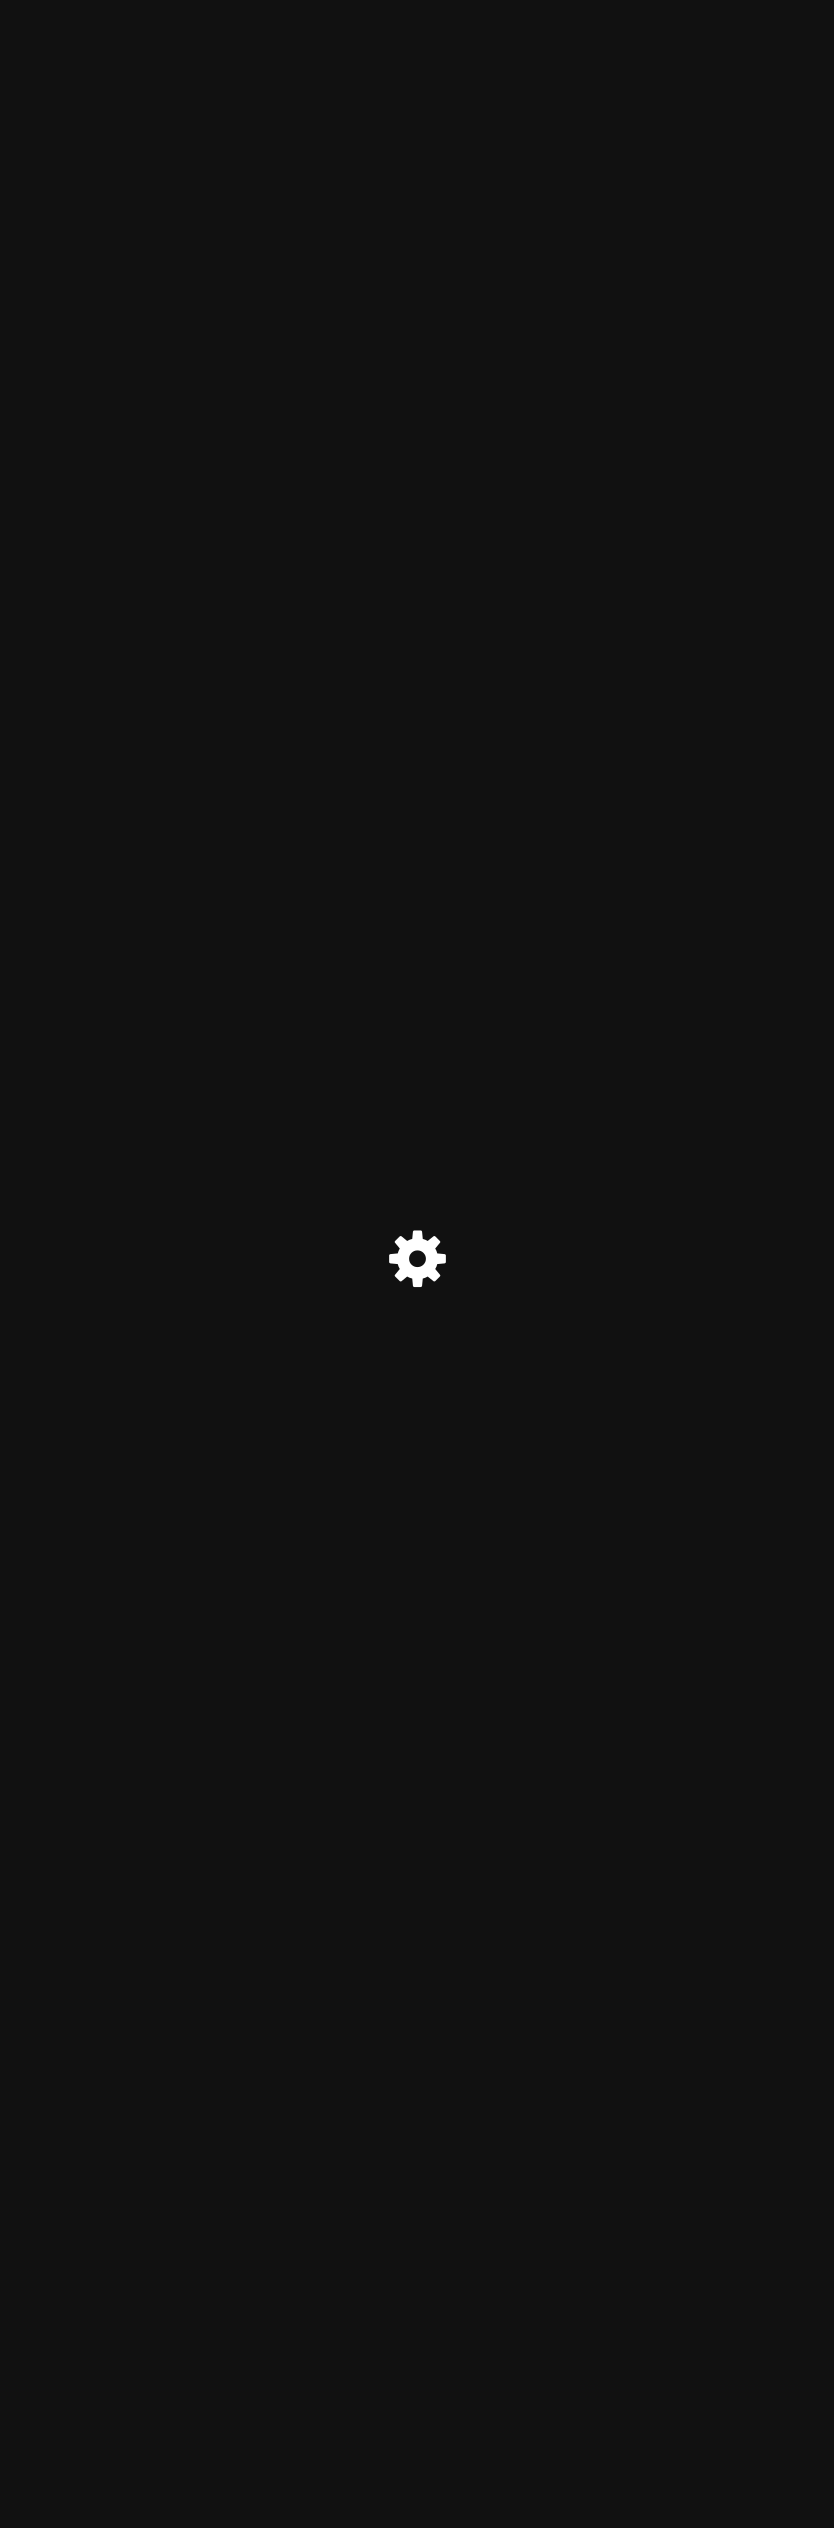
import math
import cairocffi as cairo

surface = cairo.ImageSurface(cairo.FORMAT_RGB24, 834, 2528)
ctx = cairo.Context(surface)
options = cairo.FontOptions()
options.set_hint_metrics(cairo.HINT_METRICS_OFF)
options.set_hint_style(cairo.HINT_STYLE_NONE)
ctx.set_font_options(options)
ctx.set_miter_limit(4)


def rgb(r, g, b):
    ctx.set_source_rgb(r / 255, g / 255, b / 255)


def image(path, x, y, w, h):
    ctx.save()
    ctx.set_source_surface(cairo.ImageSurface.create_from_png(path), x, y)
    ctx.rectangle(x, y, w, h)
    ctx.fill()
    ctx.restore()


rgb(17, 17, 17)
ctx.paint()
image('image0.png', 389, 1230, 57, 58)
surface.write_to_png('render.png')
